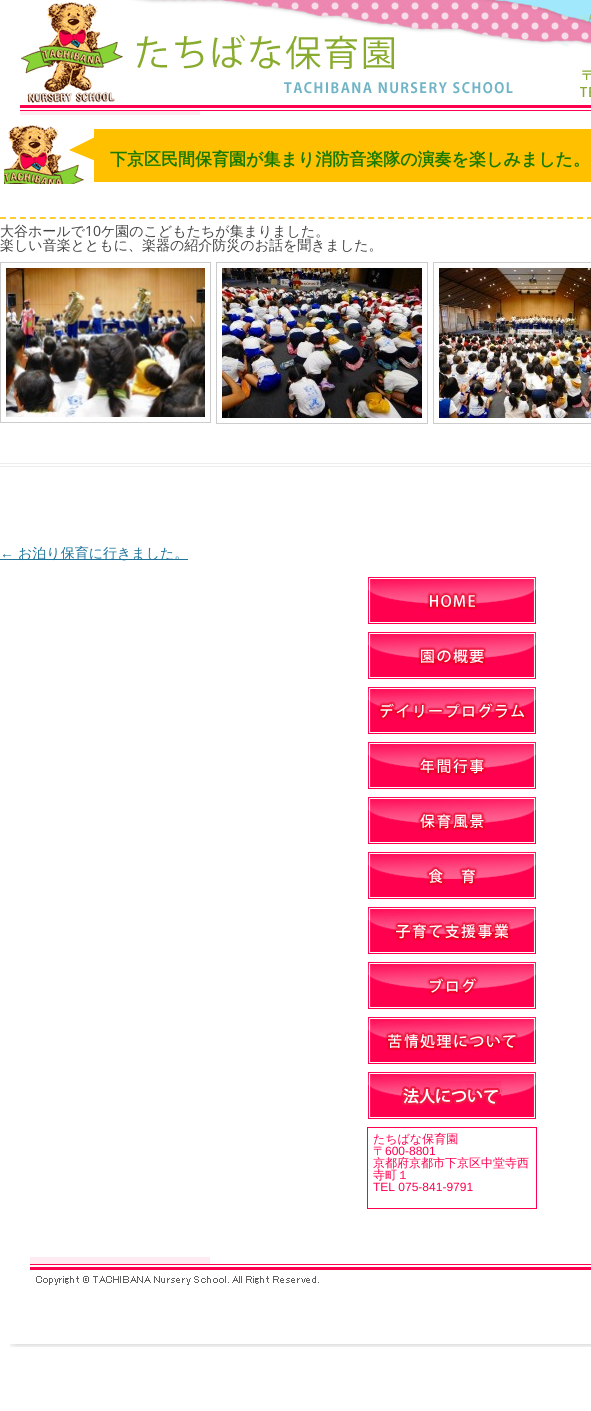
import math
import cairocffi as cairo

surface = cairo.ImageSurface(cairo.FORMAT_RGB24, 591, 1411)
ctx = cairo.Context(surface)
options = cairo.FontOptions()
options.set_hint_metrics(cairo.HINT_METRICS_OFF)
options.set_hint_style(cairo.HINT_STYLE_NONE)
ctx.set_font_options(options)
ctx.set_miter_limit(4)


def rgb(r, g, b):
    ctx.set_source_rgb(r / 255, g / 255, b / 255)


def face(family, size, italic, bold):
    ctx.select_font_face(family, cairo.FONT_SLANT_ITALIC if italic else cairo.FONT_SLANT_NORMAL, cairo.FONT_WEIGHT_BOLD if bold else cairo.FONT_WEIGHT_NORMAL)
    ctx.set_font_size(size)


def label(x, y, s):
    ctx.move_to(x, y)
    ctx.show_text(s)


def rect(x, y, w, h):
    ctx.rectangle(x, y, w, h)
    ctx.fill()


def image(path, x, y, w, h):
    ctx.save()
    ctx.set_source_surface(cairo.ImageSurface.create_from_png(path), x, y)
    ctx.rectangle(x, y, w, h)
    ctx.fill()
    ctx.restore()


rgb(255, 255, 255)
ctx.paint()
image('image0.png', 20, 0, 571, 115)
rgb(237, 237, 237)
rect(0, 463, 591, 1)
rect(0, 466, 591, 1)
image('image1.png', 4, 125, 587, 59)
face('WenQuanYi Zen Hei', 17, 0, 1)
rgb(24, 123, 0)
label(110, 165, '下京区民間保育園が集まり消防音楽隊の演奏を楽しみました。')
ctx.new_path()
ctx.move_to(0, 218)
ctx.line_to(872, 218)
rgb(255, 204, 51)
ctx.set_dash([6, 3.95])
ctx.stroke()
face('WenQuanYi Zen Hei Medium', 14, 0, 0)
rgb(68, 68, 68)
label(0, 236, '大谷ホールで')
face('Open Sans', 14, 0, 0)
label(85, 236, '10')
face('WenQuanYi Zen Hei Medium', 14, 0, 0)
label(101, 236, 'ケ園のこどもたちが集まりました。')
label(0, 250, '楽しい音楽とともに、楽器の紹介防災のお話を聞きました。')
ctx.rectangle(0.5, 262.5, 210, 160)
rgb(204, 204, 204)
ctx.set_line_width(1)
ctx.set_dash([])
ctx.stroke()
image('image2.png', 6, 268, 199, 149)
ctx.rectangle(216.5, 262.5, 211, 161)
ctx.stroke()
image('image3.png', 222, 268, 200, 150)
ctx.rectangle(433.5, 262.5, 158, 161)
ctx.stroke()
image('image4.png', 439, 268, 152, 150)
face('Liberation Sans', 14, 0, 0)
rgb(33, 117, 155)
label(0, 558, '←')
rect(0, 559, 188, 1)
face('WenQuanYi Zen Hei Medium', 14, 0, 0)
label(18, 558, 'お泊り保育に行きました。')
image('image5.png', 368, 577, 168, 47)
image('image6.png', 368, 632, 168, 47)
image('image7.png', 368, 687, 168, 47)
image('image8.png', 368, 742, 168, 47)
image('image9.png', 368, 797, 168, 47)
image('image10.png', 368, 852, 168, 47)
image('image11.png', 368, 907, 168, 47)
image('image12.png', 368, 962, 168, 47)
image('image13.png', 368, 1017, 168, 47)
image('image14.png', 368, 1072, 168, 47)
ctx.rectangle(367.5, 1127.5, 169, 81)
rgb(255, 0, 78)
ctx.stroke()
face('WenQuanYi Zen Hei Medium', 12, 0, 0)
label(373, 1143, 'たちばな保育園')
label(373, 1155, '〒')
face('Liberation Sans', 12, 0, 0)
label(385, 1155, '600-8801')
face('WenQuanYi Zen Hei Medium', 12, 0, 0)
label(373, 1167, '京都府京都市下京区中堂寺西')
label(373, 1179, '寺町１')
face('Liberation Sans', 12, 0, 0)
label(373, 1191, 'TEL 075-841-9791')
image('image15.png', 10, 1257, 581, 90)
surface.write_to_png('render.png')
